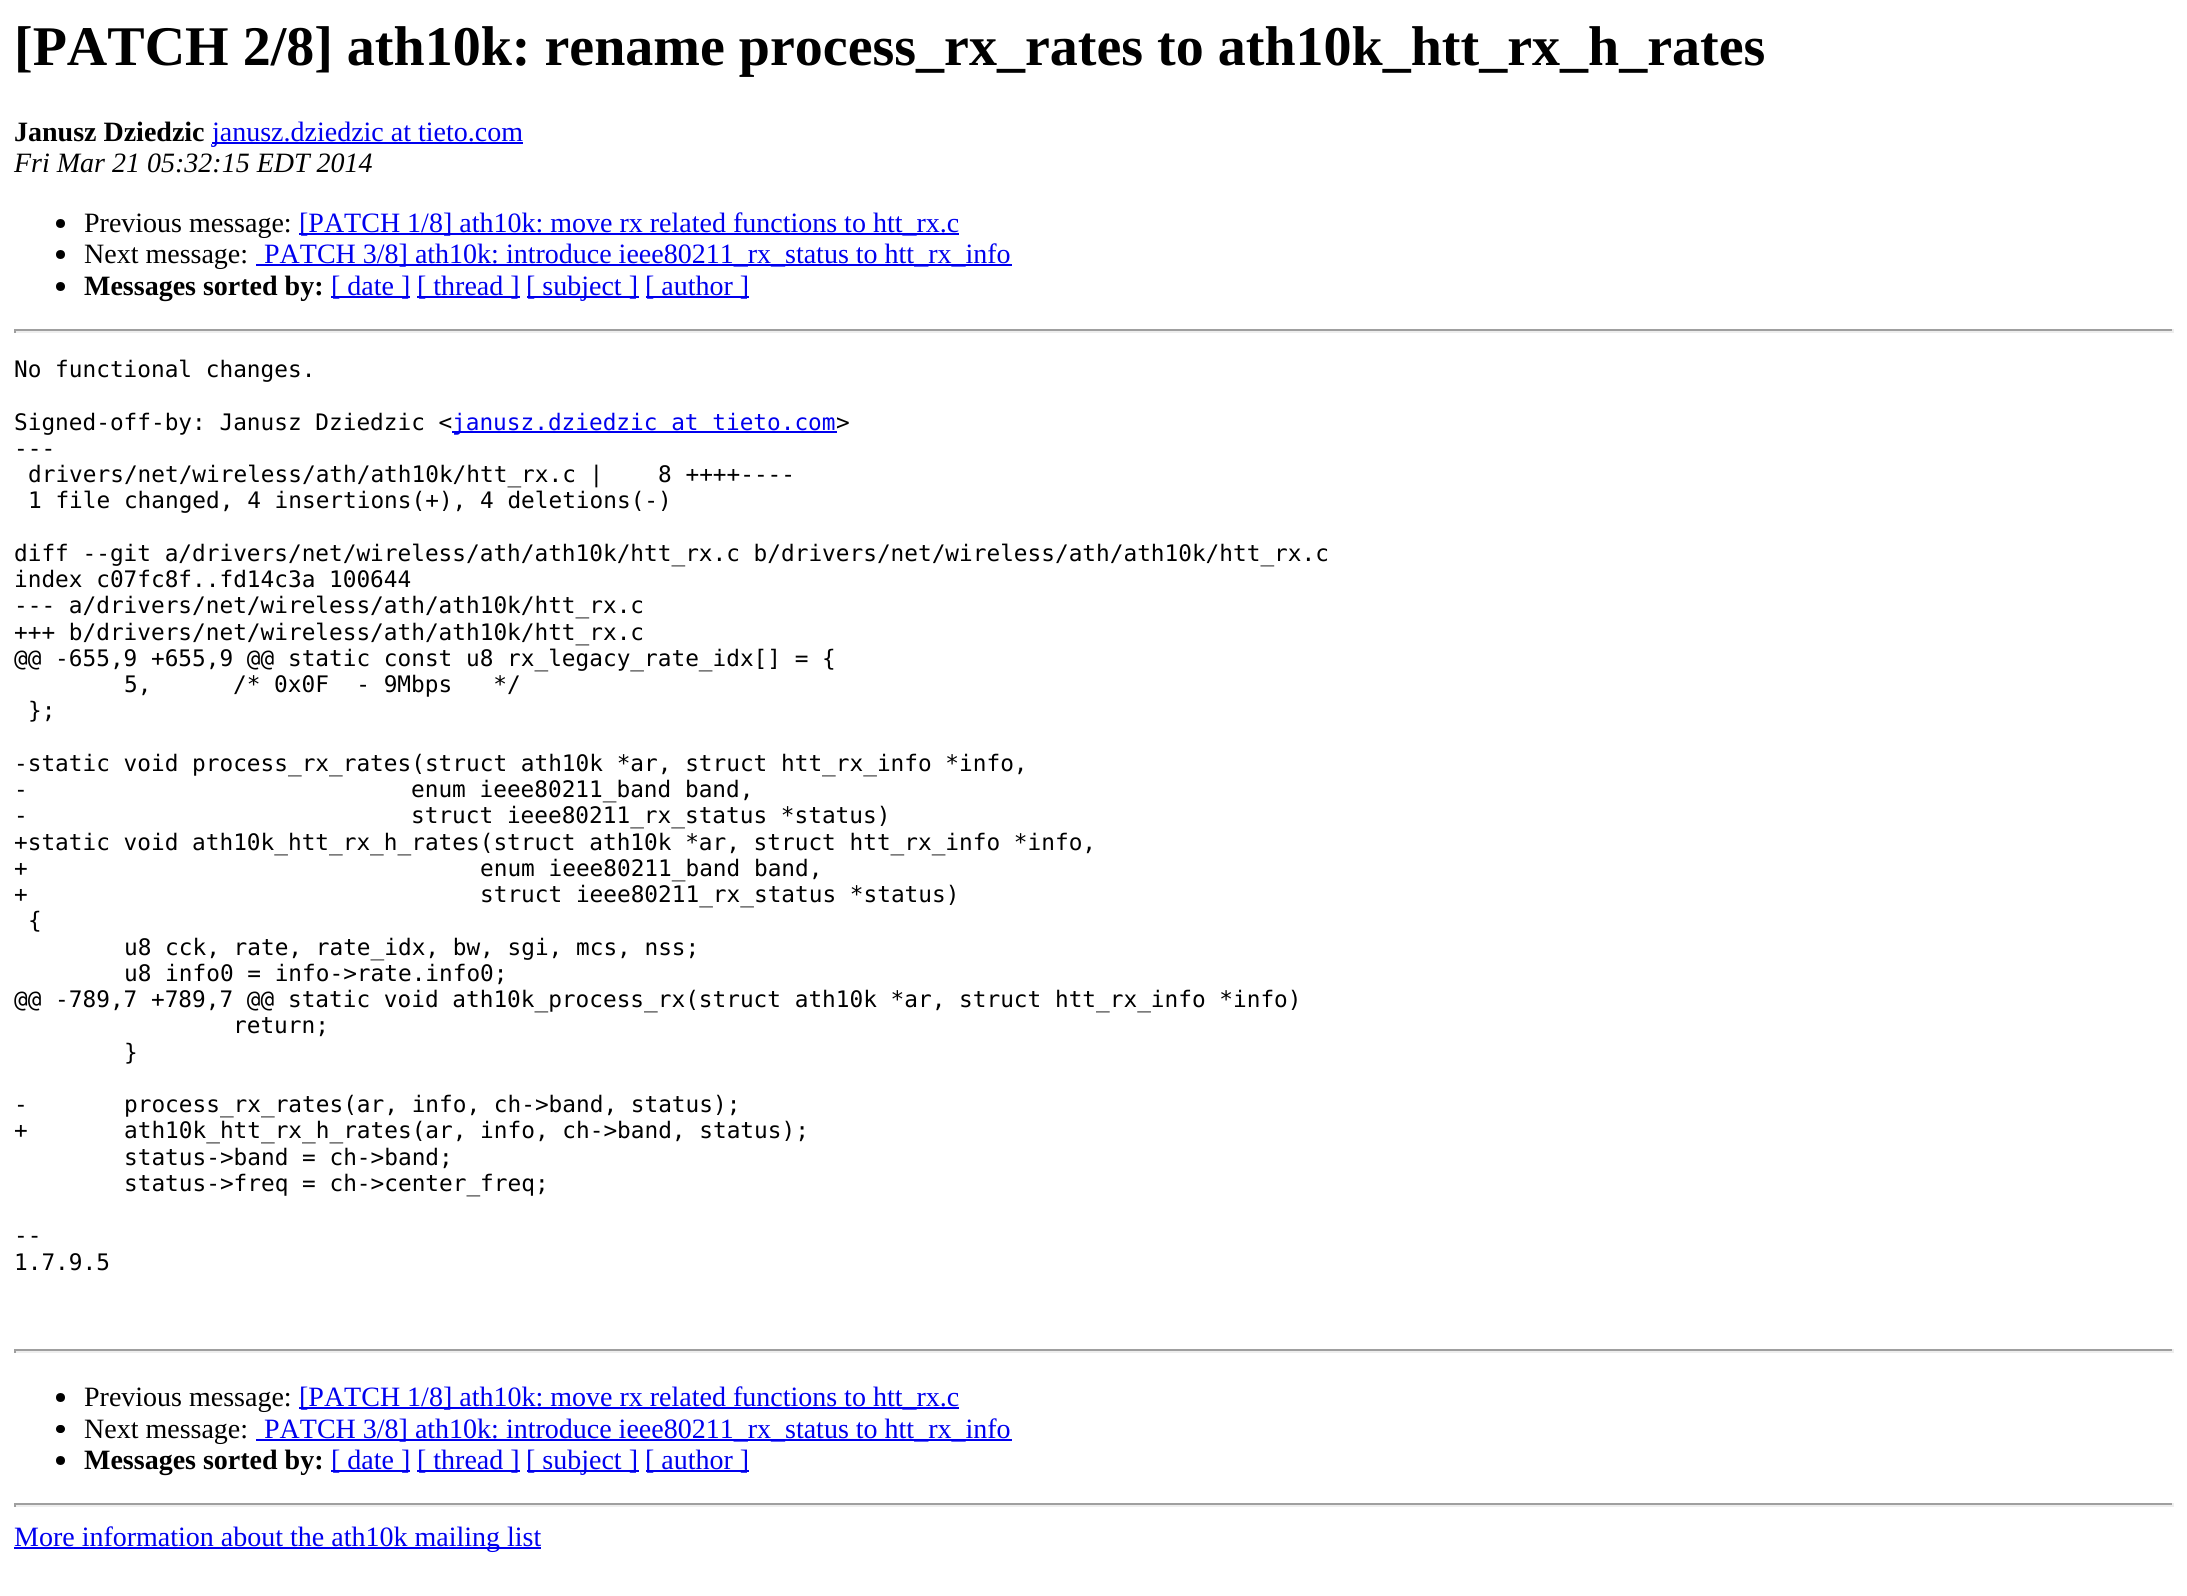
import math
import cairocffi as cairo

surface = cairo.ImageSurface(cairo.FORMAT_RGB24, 2187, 1596)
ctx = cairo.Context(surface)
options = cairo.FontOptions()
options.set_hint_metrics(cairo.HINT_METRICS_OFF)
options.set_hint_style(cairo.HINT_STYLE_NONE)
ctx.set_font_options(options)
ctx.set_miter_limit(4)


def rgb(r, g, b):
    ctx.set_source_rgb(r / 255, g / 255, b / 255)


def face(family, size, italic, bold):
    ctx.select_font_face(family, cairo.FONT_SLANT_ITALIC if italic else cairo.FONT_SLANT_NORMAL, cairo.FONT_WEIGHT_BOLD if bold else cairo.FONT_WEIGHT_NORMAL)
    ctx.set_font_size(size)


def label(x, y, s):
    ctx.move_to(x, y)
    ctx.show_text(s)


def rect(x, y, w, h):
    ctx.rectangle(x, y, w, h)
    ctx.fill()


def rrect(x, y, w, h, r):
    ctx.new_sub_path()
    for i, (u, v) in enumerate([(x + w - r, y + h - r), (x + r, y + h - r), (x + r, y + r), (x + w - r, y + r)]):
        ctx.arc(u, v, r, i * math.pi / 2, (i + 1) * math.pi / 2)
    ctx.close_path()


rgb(255, 255, 255)
ctx.paint()
face('Liberation Serif', 56, 0, 1)
rgb(0, 0, 0)
label(14, 65, '[PATCH 2/8] ath10k: rename process_rx_rates to ath10k_htt_rx_h_rates')
face('Liberation Serif', 28, 0, 1)
label(14, 141, 'Janusz Dziedzic')
rgb(0, 0, 238)
rect(212, 142, 311, 2)
face('Liberation Serif', 28, 0, 0)
label(212, 141, 'janusz.dziedzic at tieto.com')
face('Liberation Serif', 28, 1, 0)
rgb(0, 0, 0)
label(14, 172, 'Fri Mar 21 05:32:15 EDT 2014')
ctx.new_path()
ctx.arc(60.5, 223.5, 4.5, 0, 2 * math.pi)
ctx.fill()
face('Liberation Serif', 28, 0, 0)
label(84, 232, 'Previous message:')
rgb(0, 0, 238)
rect(299, 233, 660, 2)
label(299, 232, '[PATCH 1/8] ath10k: move rx related functions to htt_rx.c')
rgb(0, 0, 0)
ctx.new_path()
ctx.arc(60.5, 254.5, 4.5, 0, 2 * math.pi)
ctx.fill()
label(84, 263, 'Next message:')
rgb(0, 0, 238)
rect(256, 264, 756, 2)
label(264, 263, 'PATCH 3/8] ath10k: introduce ieee80211_rx_status to htt_rx_info')
rgb(0, 0, 0)
ctx.new_path()
ctx.arc(60.5, 286.5, 4.5, 0, 2 * math.pi)
ctx.fill()
face('Liberation Serif', 28, 0, 1)
label(84, 295, 'Messages sorted by:')
rgb(0, 0, 238)
rect(331, 296, 79, 2)
face('Liberation Serif', 28, 0, 0)
label(331, 295, '[ date ]')
rect(417, 296, 103, 2)
label(417, 295, '[ thread ]')
rect(527, 296, 112, 2)
label(526, 295, '[ subject ]')
rect(646, 296, 103, 2)
label(645, 295, '[ author ]')
rgb(159, 159, 159)
rect(14, 329, 2160, 2)
rgb(238, 238, 238)
rect(2172, 329, 2, 4)
rect(14, 331, 2160, 2)
rgb(159, 159, 159)
rect(14, 329, 2, 4)
face('DejaVu Sans Mono', 22.75, 0, 0)
rgb(0, 0, 0)
label(14, 377, 'No functional changes.')
label(14, 430, 'Signed-off-by: Janusz Dziedzic <')
rgb(0, 0, 238)
rect(452, 431, 385, 2)
label(452, 430, 'janusz.dziedzic at tieto.com')
rgb(0, 0, 0)
label(836, 430, '>')
label(14, 456, '---')
label(28, 482, 'drivers/net/wireless/ath/ath10k/htt_rx.c |    8 ++++----')
label(28, 508, '1 file changed, 4 insertions(+), 4 deletions(-)')
label(14, 561, 'diff --git a/drivers/net/wireless/ath/ath10k/htt_rx.c b/drivers/net/wireless/ath/ath10k/htt_rx.c')
label(14, 587, 'index c07fc8f..fd14c3a 100644')
label(14, 613, '--- a/drivers/net/wireless/ath/ath10k/htt_rx.c')
label(14, 640, '+++ b/drivers/net/wireless/ath/ath10k/htt_rx.c')
label(14, 666, '@@ -655,9 +655,9 @@ static const u8 rx_legacy_rate_idx[] = {')
label(124, 692, '5,')
label(233, 692, '/* 0x0F  - 9Mbps   */')
label(28, 718, '};')
label(14, 771, '-static void process_rx_rates(struct ath10k *ar, struct htt_rx_info *info,')
label(14, 797, '-')
label(411, 797, 'enum ieee80211_band band,')
label(14, 823, '-')
label(411, 823, 'struct ieee80211_rx_status *status)')
label(14, 850, '+static void ath10k_htt_rx_h_rates(struct ath10k *ar, struct htt_rx_info *info,')
label(14, 876, '+')
label(480, 876, 'enum ieee80211_band band,')
label(14, 902, '+')
label(480, 902, 'struct ieee80211_rx_status *status)')
label(28, 928, '{')
label(124, 955, 'u8 cck, rate, rate_idx, bw, sgi, mcs, nss;')
label(124, 981, 'u8 info0 = info->rate.info0;')
label(14, 1007, '@@ -789,7 +789,7 @@ static void ath10k_process_rx(struct ath10k *ar, struct htt_rx_info *info)')
label(233, 1033, 'return;')
label(124, 1060, '}')
label(14, 1112, '-')
label(124, 1112, 'process_rx_rates(ar, info, ch->band, status);')
label(14, 1138, '+')
label(124, 1138, 'ath10k_htt_rx_h_rates(ar, info, ch->band, status);')
label(124, 1165, 'status->band = ch->band;')
label(124, 1191, 'status->freq = ch->center_freq;')
label(14, 1243, '--')
label(14, 1270, '1.7.9.5')
rgb(159, 159, 159)
rect(14, 1349, 2160, 2)
rgb(238, 238, 238)
rect(2172, 1349, 2, 4)
rect(14, 1351, 2160, 2)
rgb(159, 159, 159)
rect(14, 1349, 2, 4)
rgb(0, 0, 0)
ctx.new_path()
ctx.arc(60.5, 1397.5, 4.5, 0, 2 * math.pi)
ctx.fill()
face('Liberation Serif', 28, 0, 0)
label(84, 1406, 'Previous message:')
rgb(0, 0, 238)
rect(299, 1407, 660, 2)
label(299, 1406, '[PATCH 1/8] ath10k: move rx related functions to htt_rx.c')
rgb(0, 0, 0)
rrect(56, 1425, 9, 8, 4)
ctx.fill()
label(84, 1438, 'Next message:')
rgb(0, 0, 238)
rect(256, 1439, 756, 2)
label(264, 1438, 'PATCH 3/8] ath10k: introduce ieee80211_rx_status to htt_rx_info')
rgb(0, 0, 0)
ctx.new_path()
ctx.arc(60.5, 1460.5, 4.5, 0, 2 * math.pi)
ctx.fill()
face('Liberation Serif', 28, 0, 1)
label(84, 1469, 'Messages sorted by:')
rgb(0, 0, 238)
rect(331, 1470, 79, 2)
face('Liberation Serif', 28, 0, 0)
label(331, 1469, '[ date ]')
rect(417, 1470, 103, 2)
label(417, 1469, '[ thread ]')
rect(527, 1470, 112, 2)
label(526, 1469, '[ subject ]')
rect(646, 1470, 103, 2)
label(645, 1469, '[ author ]')
rgb(159, 159, 159)
rect(14, 1503, 2160, 2)
rgb(238, 238, 238)
rect(2172, 1503, 2, 4)
rect(14, 1505, 2160, 2)
rgb(159, 159, 159)
rect(14, 1503, 2, 4)
rgb(0, 0, 238)
rect(14, 1547, 527, 2)
label(14, 1546, 'More information about the ath10k mailing list')
surface.write_to_png('render.png')
